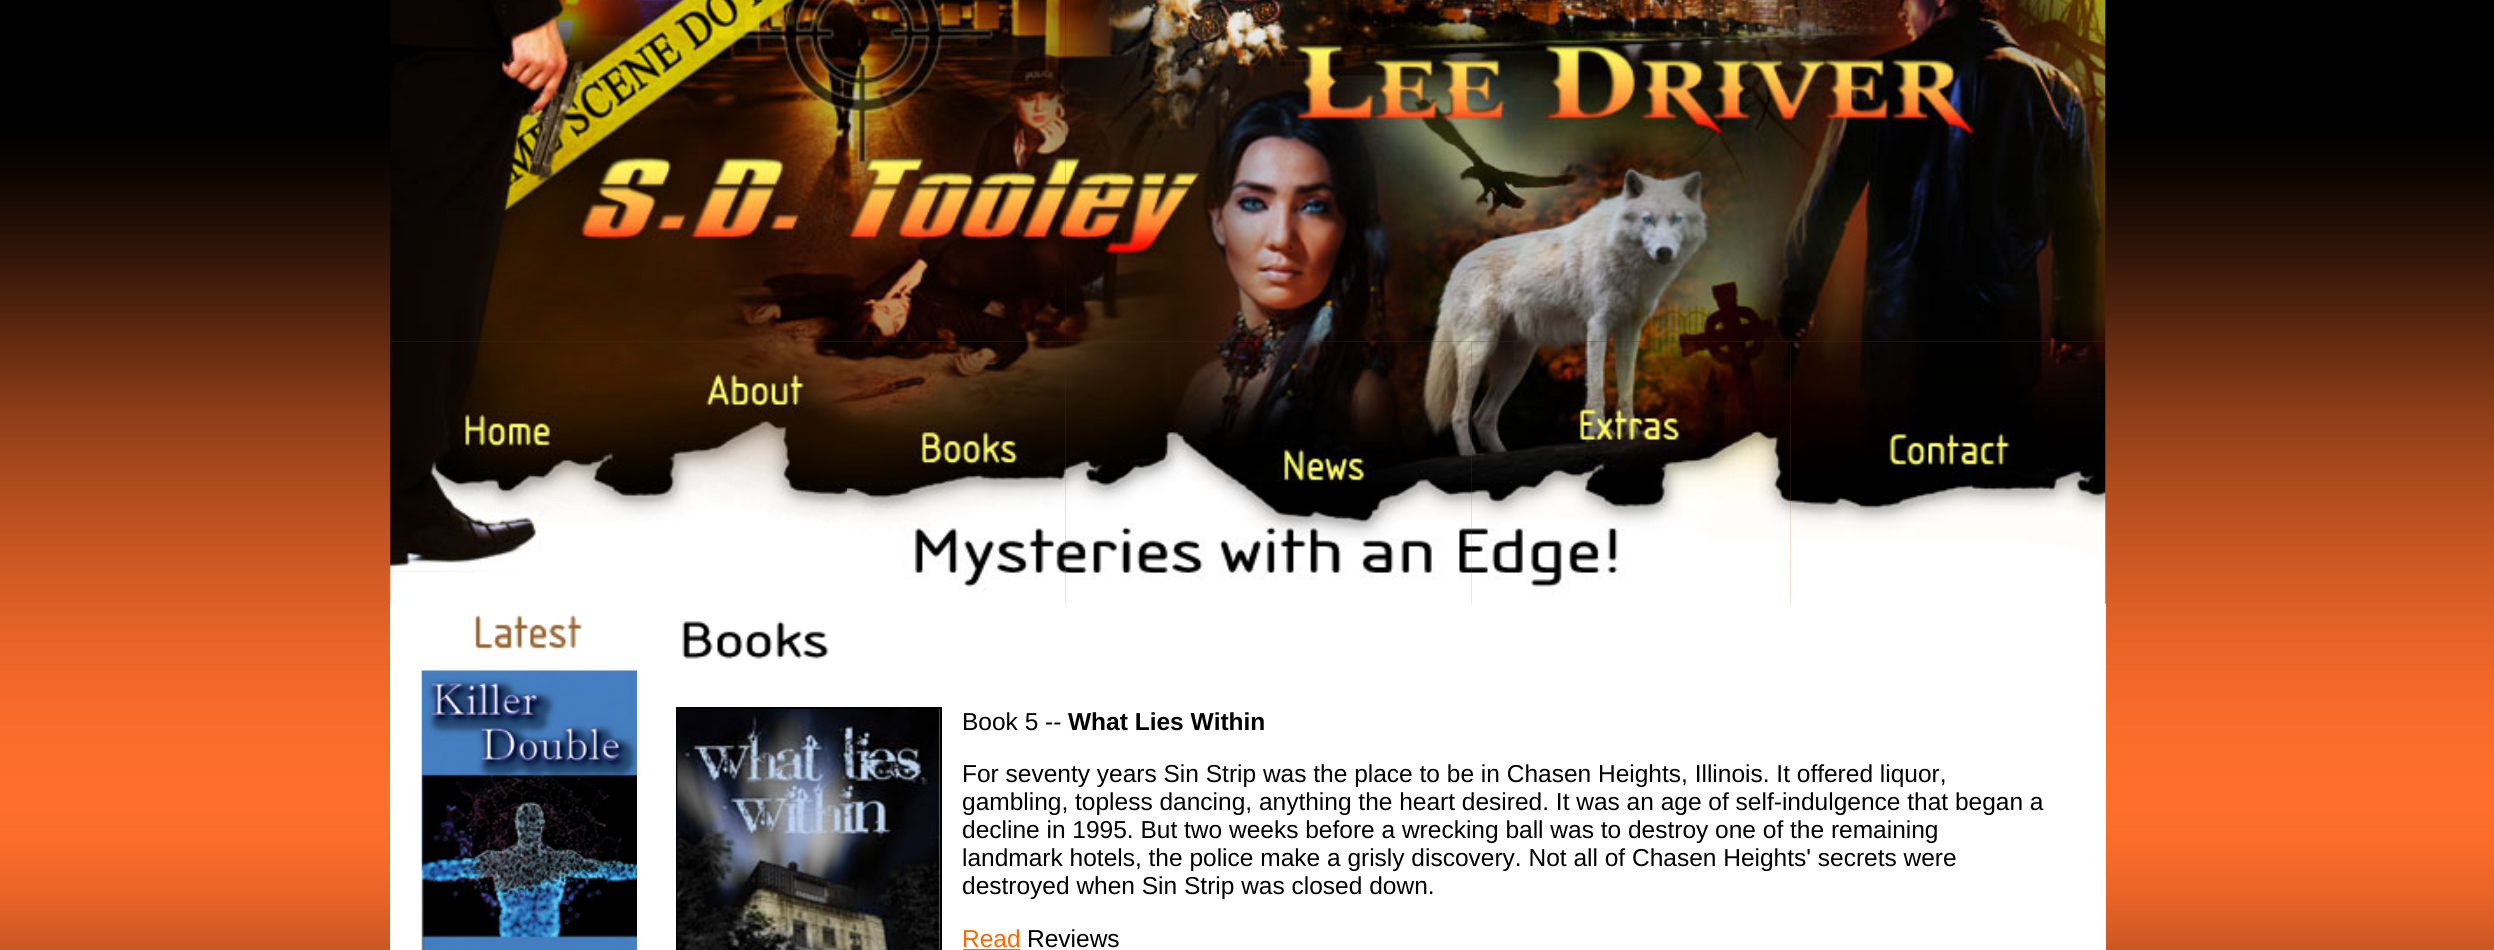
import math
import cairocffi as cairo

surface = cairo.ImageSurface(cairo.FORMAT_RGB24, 2494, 950)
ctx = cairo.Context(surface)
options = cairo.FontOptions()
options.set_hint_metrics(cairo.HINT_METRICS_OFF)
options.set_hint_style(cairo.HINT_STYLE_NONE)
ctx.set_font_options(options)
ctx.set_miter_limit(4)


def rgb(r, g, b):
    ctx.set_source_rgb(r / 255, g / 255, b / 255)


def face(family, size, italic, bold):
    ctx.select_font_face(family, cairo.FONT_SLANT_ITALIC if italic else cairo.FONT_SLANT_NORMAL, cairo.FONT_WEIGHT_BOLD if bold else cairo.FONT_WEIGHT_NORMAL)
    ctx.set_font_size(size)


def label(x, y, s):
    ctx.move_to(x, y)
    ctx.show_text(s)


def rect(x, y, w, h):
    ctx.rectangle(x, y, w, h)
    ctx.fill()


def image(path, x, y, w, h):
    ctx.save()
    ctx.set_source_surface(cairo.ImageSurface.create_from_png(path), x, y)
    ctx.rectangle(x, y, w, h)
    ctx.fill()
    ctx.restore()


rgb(255, 255, 255)
ctx.paint()
image('image0.png', 0, 0, 2494, 950)
image('image1.png', 390, 0, 676, 342)
image('image2.png', 1065, 0, 1041, 342)
image('image3.png', 390, 341, 219, 263)
image('image4.png', 609, 341, 238, 263)
image('image5.png', 847, 341, 219, 263)
image('image6.png', 1065, 341, 407, 263)
image('image7.png', 1471, 341, 320, 263)
image('image8.png', 1790, 341, 316, 263)
rgb(255, 255, 255)
rect(390, 604, 1716, 346)
image('image9.png', 475, 614, 108, 35)
image('image10.png', 421, 670, 216, 280)
image('image11.png', 682, 621, 147, 38)
ctx.rectangle(677, 708, 264, 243)
rgb(0, 0, 0)
ctx.stroke()
image('image12.png', 677, 709, 263, 241)
face('Liberation Sans', 24.5, 0, 0)
label(962, 730, 'Book 5 --')
face('Liberation Sans', 24.5, 0, 1)
label(1068, 730, 'What Lies Within')
face('Liberation Sans', 24.5, 0, 0)
label(962, 782, 'For seventy years Sin Strip was the place to be in Chasen Heights, Illinois. It offered liquor,')
label(962, 810, 'gambling, topless dancing, anything the heart desired. It was an age of self-indulgence that began a')
label(962, 838, 'decline in 1995. But two weeks before a wrecking ball was to destroy one of the remaining')
label(962, 866, 'landmark hotels, the police make a grisly discovery. Not all of Chasen Heights\' secrets were')
label(962, 894, 'destroyed when Sin Strip was closed down.')
rgb(255, 102, 0)
label(962, 947, 'Read')
rect(963, 949, 57, 1)
rgb(0, 0, 0)
label(1027, 947, 'Reviews')
surface.write_to_png('render.png')
